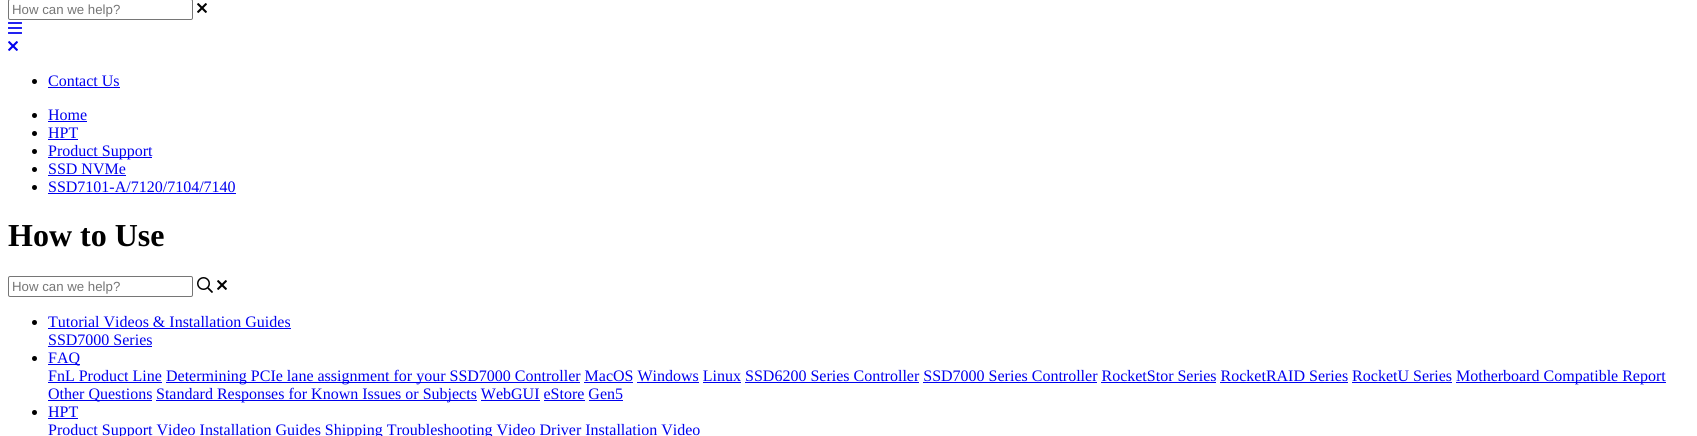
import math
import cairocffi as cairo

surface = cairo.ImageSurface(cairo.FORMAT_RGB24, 1697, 436)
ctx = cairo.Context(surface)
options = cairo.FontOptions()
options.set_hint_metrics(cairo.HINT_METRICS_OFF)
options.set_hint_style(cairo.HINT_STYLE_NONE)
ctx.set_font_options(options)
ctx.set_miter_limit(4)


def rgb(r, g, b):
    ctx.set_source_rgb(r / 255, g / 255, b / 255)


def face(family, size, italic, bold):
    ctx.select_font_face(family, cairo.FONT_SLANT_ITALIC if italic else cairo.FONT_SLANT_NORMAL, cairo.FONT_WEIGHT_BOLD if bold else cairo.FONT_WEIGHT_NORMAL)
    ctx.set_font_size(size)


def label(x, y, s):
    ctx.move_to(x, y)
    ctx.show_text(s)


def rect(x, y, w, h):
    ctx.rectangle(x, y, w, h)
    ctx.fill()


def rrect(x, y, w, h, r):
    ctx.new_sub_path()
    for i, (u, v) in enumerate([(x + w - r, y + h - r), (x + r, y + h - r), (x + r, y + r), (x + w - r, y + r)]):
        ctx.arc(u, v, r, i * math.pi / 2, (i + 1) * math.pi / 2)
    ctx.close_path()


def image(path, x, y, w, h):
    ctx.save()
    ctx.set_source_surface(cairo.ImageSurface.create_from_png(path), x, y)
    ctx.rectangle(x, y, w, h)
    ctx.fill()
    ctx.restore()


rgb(255, 255, 255)
ctx.paint()
rrect(8.5, -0.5, 184, 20, 1.5)
rgb(118, 118, 118)
ctx.set_line_width(1)
ctx.stroke()
face('Liberation Sans', 13.25, 0, 0)
rgb(117, 117, 117)
label(12, 14, 'How can we help?')
image('image0.png', 197, 3, 10, 10)
image('image1.png', 8, 22, 14, 12)
image('image2.png', 8, 41, 10, 10)
rgb(0, 0, 0)
ctx.arc(34.5, 81.5, 2.5, 0, 2 * math.pi)
ctx.fill()
face('Liberation Serif', 16, 0, 0)
rgb(0, 0, 238)
label(48, 86, 'Contact Us')
rect(48, 87, 72, 1)
rgb(0, 0, 0)
ctx.new_path()
ctx.arc(34.5, 115.5, 2.5, 0, 2 * math.pi)
ctx.fill()
rgb(0, 0, 238)
label(48, 120, 'Home')
rect(48, 121, 39, 1)
rgb(0, 0, 0)
ctx.new_path()
ctx.arc(34.5, 133.5, 2.5, 0, 2 * math.pi)
ctx.fill()
rgb(0, 0, 238)
label(48, 138, 'HPT')
rect(48, 139, 30, 1)
rgb(0, 0, 0)
ctx.new_path()
ctx.arc(34.5, 151.5, 2.5, 0, 2 * math.pi)
ctx.fill()
rgb(0, 0, 238)
rect(48, 157, 104, 1)
label(48, 156, 'Product Support')
rgb(0, 0, 0)
ctx.new_path()
ctx.arc(34.5, 169.5, 2.5, 0, 2 * math.pi)
ctx.fill()
rgb(0, 0, 238)
label(48, 174, 'SSD NVMe')
rect(48, 175, 78, 1)
rgb(0, 0, 0)
ctx.new_path()
ctx.arc(34.5, 187.5, 2.5, 0, 2 * math.pi)
ctx.fill()
rgb(0, 0, 238)
label(48, 192, 'SSD7101-A/7120/7104/7140')
rect(48, 193, 188, 1)
face('Liberation Serif', 32, 0, 1)
rgb(0, 0, 0)
label(8, 246, 'How to Use')
rrect(8.5, 276.5, 184, 20, 1.5)
rgb(118, 118, 118)
ctx.stroke()
face('Liberation Sans', 13.25, 0, 0)
rgb(117, 117, 117)
label(12, 291, 'How can we help?')
image('image3.png', 197, 277, 16, 16)
image('image0.png', 217, 280, 10, 10)
rgb(0, 0, 0)
ctx.arc(34.5, 322.5, 2.5, 0, 2 * math.pi)
ctx.fill()
face('Liberation Serif', 16, 0, 0)
rgb(0, 0, 238)
label(48, 327, 'Tutorial Videos & Installation Guides')
rect(48, 328, 243, 1)
label(48, 345, 'SSD7000 Series')
rect(48, 346, 104, 1)
rgb(0, 0, 0)
ctx.new_path()
ctx.arc(34.5, 358.5, 2.5, 0, 2 * math.pi)
ctx.fill()
rgb(0, 0, 238)
rect(48, 364, 32, 1)
label(48, 363, 'FAQ')
label(48, 381, 'FnL Product Line')
rect(48, 382, 114, 1)
rect(166, 382, 414, 1)
label(166, 381, 'Determining PCIe lane assignment for your SSD7000 Controller MacOS Windows Linux SSD6200 Series Controller SSD7000 Series Controller RocketStor Series RocketRAID Series RocketU Series')
rect(1456, 382, 210, 1)
label(1456, 381, 'Motherboard Compatible Report')
rect(584, 382, 49, 1)
rect(637, 382, 62, 1)
rect(703, 382, 38, 1)
rect(745, 382, 174, 1)
rect(923, 382, 174, 1)
rect(1101, 382, 115, 1)
rect(1220, 382, 128, 1)
rect(1352, 382, 100, 1)
rect(48, 400, 104, 1)
label(48, 399, 'Other Questions')
rect(156, 400, 321, 1)
label(156, 399, 'Standard Responses for Known Issues or Subjects WebGUI eStore Gen5')
rect(481, 400, 59, 1)
rect(544, 400, 41, 1)
rect(589, 400, 34, 1)
rgb(0, 0, 0)
ctx.new_path()
ctx.arc(34.5, 412.5, 2.5, 0, 2 * math.pi)
ctx.fill()
rgb(0, 0, 238)
label(48, 417, 'HPT')
rect(48, 418, 30, 1)
label(48, 435, 'Product Support Video Installation Guides Shipping Troubleshooting Video Driver Installation Video')
surface.write_to_png('render.png')
